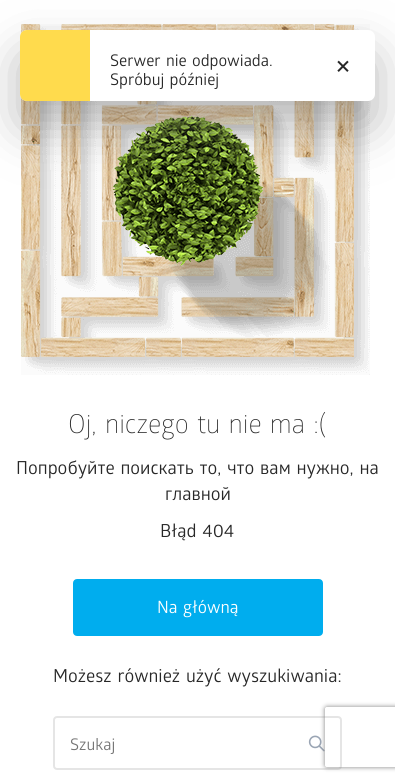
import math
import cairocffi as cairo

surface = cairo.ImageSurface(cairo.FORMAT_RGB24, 395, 781)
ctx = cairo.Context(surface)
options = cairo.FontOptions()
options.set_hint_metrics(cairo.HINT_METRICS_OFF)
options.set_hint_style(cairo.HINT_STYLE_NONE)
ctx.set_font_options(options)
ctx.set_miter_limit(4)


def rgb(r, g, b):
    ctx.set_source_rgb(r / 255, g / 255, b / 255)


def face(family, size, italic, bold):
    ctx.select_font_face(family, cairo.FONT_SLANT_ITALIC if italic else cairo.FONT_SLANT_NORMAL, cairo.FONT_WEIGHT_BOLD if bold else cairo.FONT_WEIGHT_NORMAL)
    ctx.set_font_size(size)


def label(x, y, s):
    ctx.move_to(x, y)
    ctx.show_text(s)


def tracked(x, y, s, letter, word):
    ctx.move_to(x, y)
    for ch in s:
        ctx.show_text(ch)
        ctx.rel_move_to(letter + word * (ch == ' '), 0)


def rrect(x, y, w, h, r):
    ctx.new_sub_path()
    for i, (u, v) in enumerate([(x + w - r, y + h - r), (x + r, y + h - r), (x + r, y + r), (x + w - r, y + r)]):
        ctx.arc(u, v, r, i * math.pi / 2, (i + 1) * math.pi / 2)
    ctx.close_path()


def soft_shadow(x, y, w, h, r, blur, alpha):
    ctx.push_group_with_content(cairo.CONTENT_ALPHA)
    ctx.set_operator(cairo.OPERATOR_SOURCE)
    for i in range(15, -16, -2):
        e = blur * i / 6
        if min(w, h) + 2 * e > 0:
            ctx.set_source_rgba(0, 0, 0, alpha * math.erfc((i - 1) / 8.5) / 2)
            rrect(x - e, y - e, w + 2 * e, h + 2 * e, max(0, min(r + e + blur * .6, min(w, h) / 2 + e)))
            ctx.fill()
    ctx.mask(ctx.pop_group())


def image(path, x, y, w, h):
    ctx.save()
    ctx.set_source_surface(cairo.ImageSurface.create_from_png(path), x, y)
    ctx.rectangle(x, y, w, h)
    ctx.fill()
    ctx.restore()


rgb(255, 255, 255)
ctx.paint()
image('image1.png', 21, 24, 349, 351)
rgb(79, 79, 79)
soft_shadow(20, 55, 355, 71, 7, 25, 0.4)
rgb(255, 255, 255)
rrect(20, 30, 355, 71, 7)
ctx.fill()
rgb(255, 219, 77)
ctx.new_path()
ctx.move_to(27, 30)
ctx.line_to(90, 30)
ctx.line_to(90, 101)
ctx.line_to(27, 101)
ctx.curve_to(23, 101, 20, 98, 20, 94)
ctx.line_to(20, 37)
ctx.curve_to(20, 33, 23, 30, 27, 30)
ctx.close_path()
ctx.fill()
face('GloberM', 16, 0, 0)
rgb(39, 39, 39)
tracked(110, 66, 'Serwer nie odpowiada.', 0, 1.5)
tracked(110, 85, 'Spróbuj później', 0, 1.5)
image('image0.png', 337, 60, 12, 12)
face('GloberM Light', 26, 0, 0)
tracked(68, 433, 'Oj, niczego tu nie ma :(', 0, 1.5)
face('GloberM', 18, 0, 0)
tracked(16, 474, 'Попробуйте поискать то, что вам нужно, на', 0, 1.5)
label(165, 500, 'главной')
tracked(160, 537, 'Błąd 404', 0, 1.5)
rgb(0, 173, 238)
rrect(74.5, 580.5, 247, 54, 2.5)
ctx.fill_preserve()
ctx.set_line_width(3)
ctx.stroke()
face('GloberM', 17, 0, 0)
rgb(255, 255, 255)
tracked(157, 613, 'Na główną', 0, 1.5)
face('GloberM', 18, 0, 0)
rgb(39, 39, 39)
tracked(53, 682, 'Możesz również użyć wyszukiwania:', 0, 1.5)
rrect(54, 717, 287, 52, 3)
rgb(229, 229, 229)
ctx.set_line_width(2)
ctx.stroke()
face('GloberM', 16, 0, 0)
rgb(117, 117, 117)
label(70, 750, 'Szukaj')
image('image2.png', 308, 735, 17, 17)
ctx.save()
ctx.set_fill_rule(cairo.FILL_RULE_EVEN_ODD)
ctx.new_path()
ctx.move_to(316, 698)
ctx.line_to(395, 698)
ctx.line_to(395, 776)
ctx.line_to(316, 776)
ctx.close_path()
ctx.move_to(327, 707)
ctx.line_to(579, 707)
ctx.curve_to(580, 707, 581, 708, 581, 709)
ctx.line_to(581, 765)
ctx.curve_to(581, 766, 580, 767, 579, 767)
ctx.line_to(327, 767)
ctx.curve_to(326, 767, 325, 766, 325, 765)
ctx.line_to(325, 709)
ctx.curve_to(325, 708, 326, 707, 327, 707)
ctx.close_path()
ctx.clip()
rgb(128, 128, 128)
soft_shadow(325, 707, 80, 60, 2, 2.5, 1)
ctx.restore()
surface.write_to_png('render.png')
